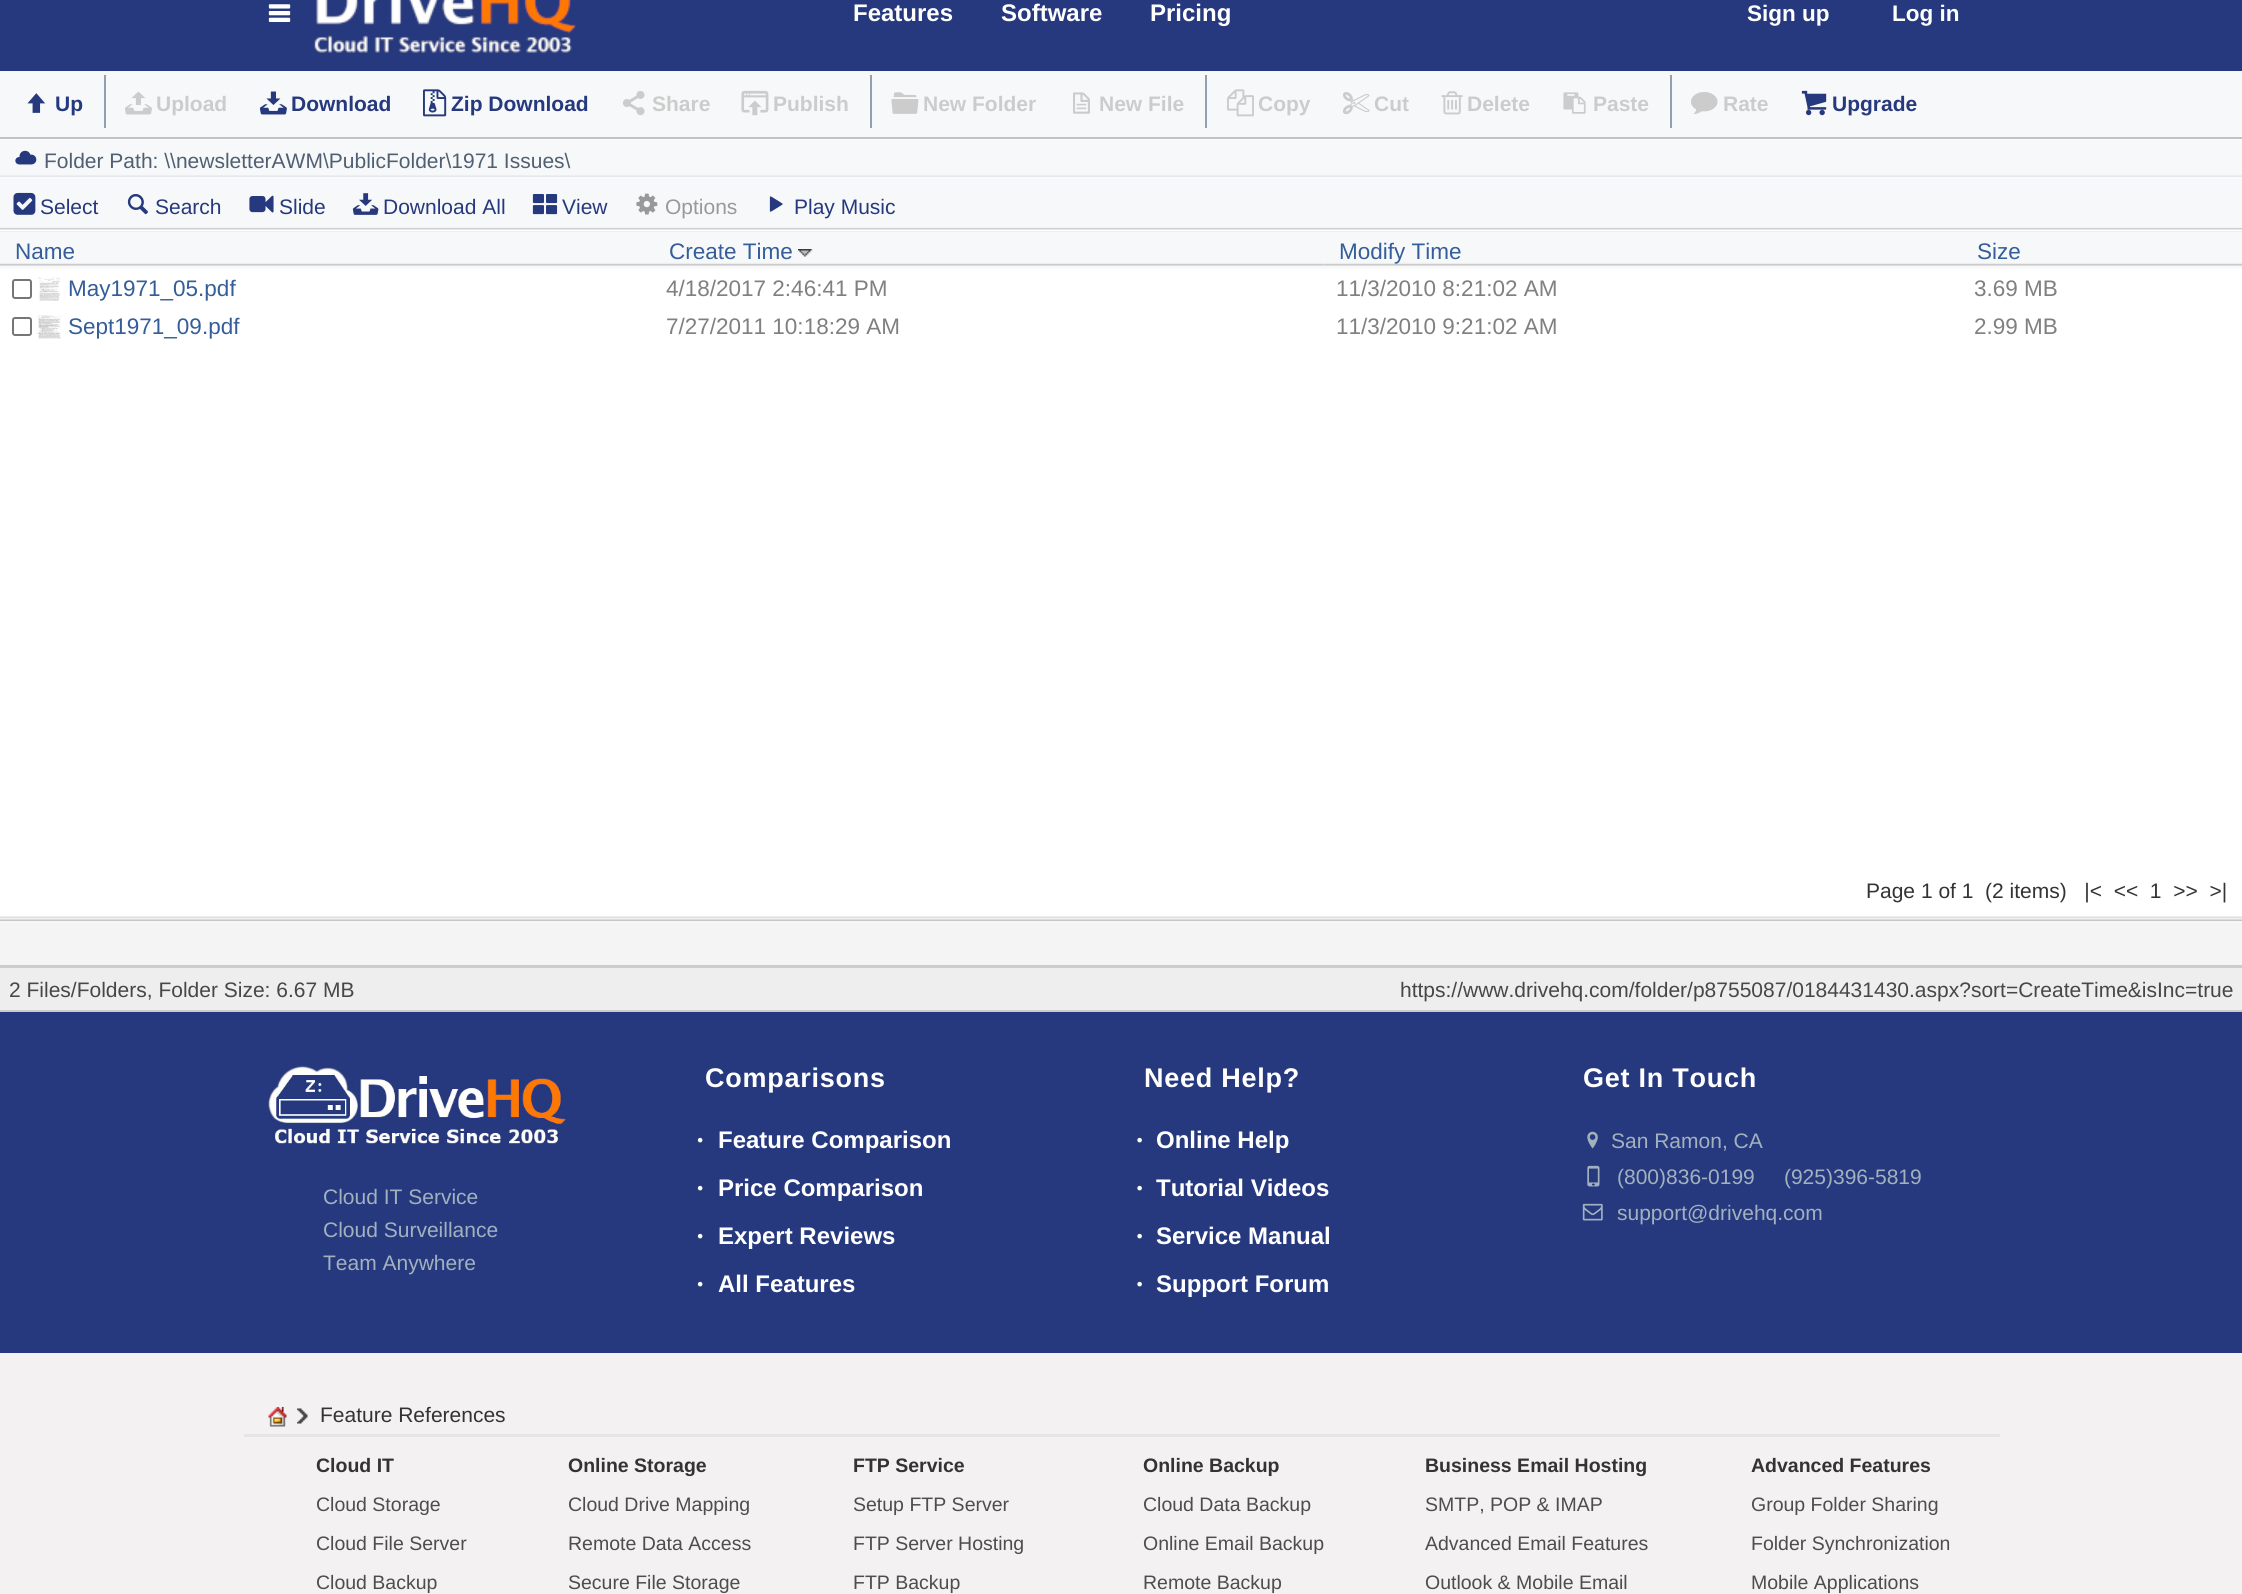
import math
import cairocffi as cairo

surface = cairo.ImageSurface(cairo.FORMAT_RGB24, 2242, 1594)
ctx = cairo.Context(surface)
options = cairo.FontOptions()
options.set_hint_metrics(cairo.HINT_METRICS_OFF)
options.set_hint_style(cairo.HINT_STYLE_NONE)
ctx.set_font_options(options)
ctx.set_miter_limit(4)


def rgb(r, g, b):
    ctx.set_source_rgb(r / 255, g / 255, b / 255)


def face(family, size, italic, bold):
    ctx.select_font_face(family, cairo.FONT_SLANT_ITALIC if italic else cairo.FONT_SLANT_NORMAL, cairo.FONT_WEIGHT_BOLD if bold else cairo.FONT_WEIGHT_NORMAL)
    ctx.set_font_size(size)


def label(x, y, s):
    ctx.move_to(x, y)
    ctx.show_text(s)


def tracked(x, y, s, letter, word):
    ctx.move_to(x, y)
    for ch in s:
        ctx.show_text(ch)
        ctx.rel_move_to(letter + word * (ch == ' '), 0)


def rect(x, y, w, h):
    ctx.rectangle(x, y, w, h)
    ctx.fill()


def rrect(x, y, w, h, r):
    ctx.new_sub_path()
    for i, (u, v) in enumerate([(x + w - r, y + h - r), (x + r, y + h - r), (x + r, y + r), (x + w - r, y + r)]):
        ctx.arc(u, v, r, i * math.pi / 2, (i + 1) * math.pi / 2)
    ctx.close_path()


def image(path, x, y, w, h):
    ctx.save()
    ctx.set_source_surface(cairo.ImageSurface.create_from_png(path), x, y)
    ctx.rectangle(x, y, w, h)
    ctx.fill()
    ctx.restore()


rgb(255, 255, 255)
ctx.paint()
rgb(38, 57, 126)
rect(0, 0, 2242, 71)
image('image0.png', 268, 4, 23, 18)
image('image1.png', 313, 0, 264, 53)
face('Liberation Sans', 24, 0, 1)
rgb(255, 255, 255)
label(853, 21, 'Features')
label(1001, 21, 'Software')
label(1150, 21, 'Pricing')
face('Liberation Sans', 22.5, 0, 1)
label(1747, 21, 'Sign up')
label(1892, 21, 'Log in')
rgb(247, 248, 249)
rect(0, 71, 2242, 66)
rgb(194, 194, 194)
rect(0, 137, 2242, 2)
image('image2.png', 27, 93, 19, 20)
face('Liberation Sans', 21, 0, 1)
rgb(38, 57, 126)
label(55, 111, 'Up')
rgb(143, 161, 179)
rect(104, 75, 2, 53)
image('image3.png', 125, 91, 27, 24)
rgb(204, 204, 204)
label(156, 111, 'Upload')
image('image4.png', 259, 91, 28, 24)
rgb(38, 57, 126)
label(291, 111, 'Download')
image('image5.png', 423, 89, 24, 28)
label(451, 111, 'Zip Download')
image('image6.png', 623, 91, 22, 25)
rgb(204, 204, 204)
label(652, 111, 'Share')
image('image7.png', 741, 90, 28, 26)
label(773, 111, 'Publish')
rgb(143, 161, 179)
rect(870, 75, 2, 53)
image('image8.png', 891, 92, 28, 22)
rgb(204, 204, 204)
label(923, 111, 'New Folder')
image('image9.png', 1073, 92, 17, 22)
label(1099, 111, 'New File')
rgb(143, 161, 179)
rect(1205, 75, 2, 53)
image('image10.png', 1227, 89, 27, 28)
rgb(204, 204, 204)
label(1258, 111, 'Copy')
image('image11.png', 1343, 92, 27, 23)
label(1374, 111, 'Cut')
image('image12.png', 1441, 91, 22, 24)
label(1467, 111, 'Delete')
image('image13.png', 1563, 92, 23, 22)
label(1593, 111, 'Paste')
rgb(143, 161, 179)
rect(1670, 75, 2, 53)
image('image14.png', 1691, 92, 27, 23)
rgb(204, 204, 204)
label(1723, 111, 'Rate')
image('image15.png', 1801, 90, 26, 26)
rgb(38, 57, 126)
label(1832, 111, 'Upgrade')
image('image16.png', 0, 139, 2242, 91)
image('image17.png', 15, 150, 22, 15)
face('Liberation Sans', 21, 0, 0)
rgb(80, 96, 115)
label(44, 168, 'Folder Path: \\\\newsletterAWM\\PublicFolder\\1971 Issues\\')
image('image18.png', 13, 192, 23, 23)
rgb(38, 57, 126)
label(40, 214, 'Select')
image('image19.png', 127, 194, 21, 21)
label(155, 214, 'Search')
image('image20.png', 249, 195, 25, 18)
label(279, 214, 'Slide')
image('image21.png', 352, 193, 27, 22)
label(383, 214, 'Download All')
image('image22.png', 532, 194, 26, 21)
label(562, 214, 'View')
image('image23.png', 636, 193, 22, 22)
rgb(153, 153, 153)
label(665, 214, 'Options')
image('image24.png', 769, 196, 14, 16)
rgb(38, 57, 126)
label(794, 214, 'Play Music')
image('image25.png', 0, 231, 654, 38)
face('Liberation Sans', 22.5, 0, 0)
rgb(52, 93, 154)
label(15, 259, 'Name')
image('image26.png', 654, 231, 671, 38)
label(669, 259, 'Create Time')
image('image27.png', 798, 249, 15, 8)
image('image28.png', 1324, 231, 638, 38)
label(1339, 259, 'Modify Time')
image('image29.png', 1962, 231, 280, 38)
label(1977, 259, 'Size')
rrect(13, 280, 18, 18, 2)
rgb(118, 118, 118)
ctx.stroke()
image('image30.png', 38, 277, 23, 24)
rgb(52, 93, 154)
label(68, 296, 'May1971_05.pdf')
rgb(128, 128, 128)
label(666, 296, '4/18/2017 2:46:41 PM')
label(1336, 296, '11/3/2010 8:21:02 AM')
label(1974, 296, '3.69 MB')
rrect(13, 318, 18, 17, 2)
rgb(118, 118, 118)
ctx.stroke()
image('image31.png', 37, 315, 25, 24)
rgb(52, 93, 154)
label(68, 334, 'Sept1971_09.pdf')
rgb(128, 128, 128)
label(666, 334, '7/27/2011 10:18:29 AM')
label(1336, 334, '11/3/2010 9:21:02 AM')
label(1974, 334, '2.99 MB')
face('Liberation Sans', 21, 0, 0)
rgb(51, 51, 51)
label(1866, 898, 'Page 1 of 1  (2 items)   |<  <<  1  >>  >|')
rgb(244, 244, 244)
rect(0, 922, 2242, 43)
image('image32.png', 0, 916, 2242, 7)
rgb(204, 204, 204)
rect(0, 965, 2242, 3)
rgb(238, 238, 238)
rect(0, 968, 2242, 42)
rgb(204, 204, 204)
rect(0, 1010, 2242, 2)
rgb(71, 71, 71)
label(9, 997, '2 Files/Folders, Folder Size: 6.67 MB')
label(1400, 997, 'https://www.drivehq.com/folder/p8755087/0184431430.aspx?sort=CreateTime&isInc=true')
rgb(38, 57, 126)
rect(0, 1012, 2242, 341)
image('image33.png', 267, 1063, 300, 82)
rgb(163, 177, 191)
label(323, 1204, 'Cloud IT Service')
label(323, 1237, 'Cloud Surveillance')
label(323, 1270, 'Team Anywhere')
face('Liberation Sans', 27, 0, 1)
rgb(255, 255, 255)
tracked(705, 1087, 'Comparisons', 0.75, 0)
image('image34.png', 697, 1137, 6, 6)
face('Liberation Sans', 24, 0, 1)
label(718, 1148, 'Feature Comparison')
image('image34.png', 697, 1185, 6, 6)
label(718, 1196, 'Price Comparison')
image('image34.png', 697, 1233, 6, 6)
label(718, 1244, 'Expert Reviews')
image('image34.png', 697, 1281, 6, 6)
label(718, 1292, 'All Features')
face('Liberation Sans', 27, 0, 1)
tracked(1144, 1087, 'Need Help?', 0.75, 0)
image('image35.png', 1137, 1137, 5, 6)
face('Liberation Sans', 24, 0, 1)
label(1156, 1148, 'Online Help')
image('image35.png', 1137, 1185, 5, 6)
label(1156, 1196, 'Tutorial Videos')
image('image35.png', 1137, 1233, 5, 6)
label(1156, 1244, 'Service Manual')
image('image35.png', 1137, 1281, 5, 6)
label(1156, 1292, 'Support Forum')
face('Liberation Sans', 27, 0, 1)
tracked(1583, 1087, 'Get In Touch', 0.75, 0)
image('image36.png', 1587, 1131, 11, 18)
face('Liberation Sans', 21, 0, 0)
rgb(163, 177, 191)
label(1611, 1148, 'San Ramon, CA')
image('image37.png', 1587, 1165, 13, 22)
label(1617, 1184, '(800)836-0199     (925)396-5819')
image('image38.png', 1582, 1203, 21, 18)
label(1617, 1220, 'support@drivehq.com')
rgb(243, 241, 241)
rect(0, 1353, 2242, 241)
rgb(229, 229, 229)
rect(244, 1434, 1756, 3)
image('image39.png', 268, 1407, 19, 20)
image('image40.png', 297, 1408, 11, 16)
rgb(51, 51, 51)
label(320, 1422, 'Feature References')
face('Liberation Sans', 19.5, 0, 1)
label(316, 1472, 'Cloud IT')
face('Liberation Sans', 19.5, 0, 0)
rgb(77, 77, 77)
label(316, 1511, 'Cloud Storage')
label(316, 1550, 'Cloud File Server')
label(316, 1589, 'Cloud Backup')
face('Liberation Sans', 19.5, 0, 1)
rgb(51, 51, 51)
label(568, 1472, 'Online Storage')
face('Liberation Sans', 19.5, 0, 0)
rgb(77, 77, 77)
label(568, 1511, 'Cloud Drive Mapping')
label(568, 1550, 'Remote Data Access')
label(568, 1589, 'Secure File Storage')
face('Liberation Sans', 19.5, 0, 1)
rgb(51, 51, 51)
label(853, 1472, 'FTP Service')
face('Liberation Sans', 19.5, 0, 0)
rgb(77, 77, 77)
label(853, 1511, 'Setup FTP Server')
label(853, 1550, 'FTP Server Hosting')
label(853, 1589, 'FTP Backup')
face('Liberation Sans', 19.5, 0, 1)
rgb(51, 51, 51)
label(1143, 1472, 'Online Backup')
face('Liberation Sans', 19.5, 0, 0)
rgb(77, 77, 77)
label(1143, 1511, 'Cloud Data Backup')
label(1143, 1550, 'Online Email Backup')
label(1143, 1589, 'Remote Backup')
face('Liberation Sans', 19.5, 0, 1)
rgb(51, 51, 51)
label(1425, 1472, 'Business Email Hosting')
face('Liberation Sans', 19.5, 0, 0)
rgb(77, 77, 77)
label(1425, 1511, 'SMTP, POP & IMAP')
label(1425, 1550, 'Advanced Email Features')
label(1425, 1589, 'Outlook & Mobile Email')
face('Liberation Sans', 19.5, 0, 1)
rgb(51, 51, 51)
label(1751, 1472, 'Advanced Features')
face('Liberation Sans', 19.5, 0, 0)
rgb(77, 77, 77)
label(1751, 1511, 'Group Folder Sharing')
label(1751, 1550, 'Folder Synchronization')
label(1751, 1589, 'Mobile Applications')
surface.write_to_png('render.png')
